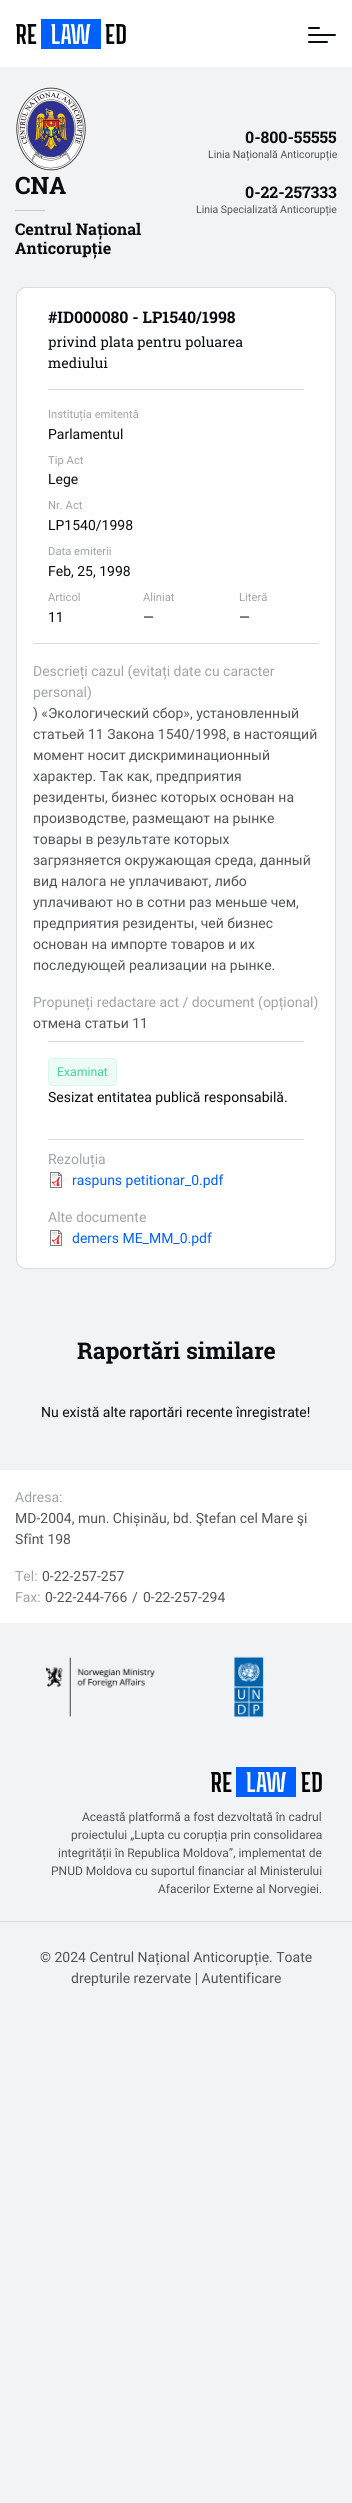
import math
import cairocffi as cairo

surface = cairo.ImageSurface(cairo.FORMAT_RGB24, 352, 2503)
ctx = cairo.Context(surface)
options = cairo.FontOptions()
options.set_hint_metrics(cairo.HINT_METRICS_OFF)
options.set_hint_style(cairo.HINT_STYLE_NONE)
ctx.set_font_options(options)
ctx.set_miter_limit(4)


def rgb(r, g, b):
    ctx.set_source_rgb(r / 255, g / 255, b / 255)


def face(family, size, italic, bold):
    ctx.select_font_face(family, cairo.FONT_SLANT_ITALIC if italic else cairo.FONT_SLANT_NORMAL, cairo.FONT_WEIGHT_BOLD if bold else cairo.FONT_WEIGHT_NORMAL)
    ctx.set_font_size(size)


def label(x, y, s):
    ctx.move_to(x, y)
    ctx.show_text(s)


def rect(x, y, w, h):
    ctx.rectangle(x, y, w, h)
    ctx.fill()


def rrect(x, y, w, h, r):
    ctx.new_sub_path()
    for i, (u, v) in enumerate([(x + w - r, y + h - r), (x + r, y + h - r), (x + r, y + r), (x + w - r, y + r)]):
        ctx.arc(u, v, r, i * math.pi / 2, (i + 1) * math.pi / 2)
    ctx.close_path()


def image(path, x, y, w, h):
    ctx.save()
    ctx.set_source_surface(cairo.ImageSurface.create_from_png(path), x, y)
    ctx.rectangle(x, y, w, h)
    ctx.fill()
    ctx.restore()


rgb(242, 243, 244)
ctx.paint()
rgb(255, 255, 255)
rect(0, 0, 352, 67)
image('image0.png', 16, 19, 110, 30)
rgb(8, 12, 16)
rrect(308, 34, 28, 2, 1)
ctx.fill()
rrect(308, 27, 12, 2, 1)
ctx.fill()
rrect(308, 41, 20, 2, 1)
ctx.fill()
image('image1.png', 16, 87, 70, 84)
face('Roboto Slab', 24, 0, 1)
label(15, 194, 'CNA')
rgb(200, 204, 208)
rect(15, 210, 30, 1)
face('Roboto Slab', 16, 0, 1)
rgb(8, 12, 16)
label(15, 235, 'Centrul Național')
label(15, 254, 'Anticorupție')
label(245, 143, '0-800-55555')
face('Roboto', 10.5, 0, 0)
rgb(80, 84, 88)
label(208, 158, 'Linia Națională Anticorupție')
face('Roboto Slab', 16, 0, 1)
rgb(8, 12, 16)
label(245, 198, '0-22-257333')
face('Roboto', 10.5, 0, 0)
rgb(80, 84, 88)
label(196, 213, 'Linia Specializată Anticorupție')
rgb(255, 255, 255)
rrect(16.5, 287.5, 319, 981, 9.5)
ctx.fill_preserve()
rgb(216, 220, 224)
ctx.set_line_width(1)
ctx.stroke()
face('Roboto Slab', 16, 0, 1)
rgb(8, 12, 16)
label(48, 323, '#ID000080 - LP1540/1998')
face('Roboto Slab', 14, 0, 0)
label(48, 347, 'privind plata pentru poluarea')
label(48, 368, 'mediului')
rgb(216, 220, 224)
rect(48, 389, 256, 1)
face('Roboto', 11.25, 0, 0)
rgb(160, 164, 168)
label(48, 418, 'Instituția emitentă')
face('Roboto', 14, 0, 0)
rgb(8, 12, 16)
label(48, 439, 'Parlamentul')
face('Roboto', 11.25, 0, 0)
rgb(160, 164, 168)
label(48, 464, 'Tip Act')
face('Roboto', 14, 0, 0)
rgb(8, 12, 16)
label(48, 484, 'Lege')
face('Roboto', 11.25, 0, 0)
rgb(160, 164, 168)
label(48, 509, 'Nr. Act')
face('Roboto', 14, 0, 0)
rgb(8, 12, 16)
label(48, 530, 'LP1540/1998')
face('Roboto', 11.25, 0, 0)
rgb(160, 164, 168)
label(48, 555, 'Data emiterii')
face('Roboto', 14, 0, 0)
rgb(8, 12, 16)
label(48, 576, 'Feb, 25, 1998')
face('Roboto', 11.25, 0, 0)
rgb(160, 164, 168)
label(48, 601, 'Articol')
face('Roboto', 14, 0, 0)
rgb(8, 12, 16)
label(48, 622, '11')
face('Roboto', 11.25, 0, 0)
rgb(160, 164, 168)
label(143, 601, 'Aliniat')
face('Roboto', 14, 0, 0)
rgb(8, 12, 16)
label(143, 622, '—')
face('Roboto', 11.25, 0, 0)
rgb(160, 164, 168)
label(239, 601, 'Literă')
face('Roboto', 14, 0, 0)
rgb(8, 12, 16)
label(239, 622, '—')
rgb(216, 220, 224)
rect(33, 643, 286, 1)
rgb(160, 164, 168)
label(33, 676, 'Descrieți cazul (evitați date cu caracter')
label(33, 697, 'personal)')
rgb(80, 84, 88)
label(33, 718, ') «Экологический сбор», установленный')
label(33, 739, 'статьей 11 Закона 1540/1998, в настоящий')
label(33, 760, 'момент носит дискриминационный')
label(33, 781, 'характер. Так как, предприятия')
label(33, 802, 'резиденты, бизнес которых основан на')
label(33, 823, 'производстве, размещают на рынке')
label(33, 844, 'товары в результате которых')
label(33, 865, 'загрязняется окружающая среда, данный')
label(33, 886, 'вид налога не уплачивают, либо')
label(33, 907, 'уплачивают но в сотни раз меньше чем,')
label(33, 928, 'предприятия резиденты, чей бизнес')
label(33, 949, 'основан на импорте товаров и их')
label(33, 970, 'последующей реализации на рынке.')
rgb(160, 164, 168)
label(33, 1007, 'Propuneți redactare act / document (opțional)')
rgb(80, 84, 88)
label(33, 1028, 'отмена статьи 11')
rgb(216, 220, 224)
rect(48, 1041, 256, 1)
rgb(236, 251, 245)
rrect(48, 1058, 69, 28, 4)
ctx.fill()
rrect(48.5, 1058.5, 68, 27, 3.5)
ctx.set_source_rgba(0.251, 0.831, 0.612, 0.1)
ctx.stroke()
face('Roboto', 12.25, 0, 0)
rgb(64, 212, 156)
label(57, 1076, 'Examinat')
face('Roboto', 14, 0, 0)
rgb(8, 12, 16)
label(48, 1102, 'Sesizat entitatea publică responsabilă.')
rgb(216, 220, 224)
rect(48, 1139, 256, 1)
rgb(160, 164, 168)
label(48, 1164, 'Rezoluția')
image('image2.png', 50, 1172, 12, 16)
rgb(0, 96, 252)
label(72, 1185, 'raspuns petitionar_0.pdf')
rgb(160, 164, 168)
label(48, 1222, 'Alte documente')
image('image2.png', 50, 1230, 12, 16)
rgb(0, 96, 252)
label(72, 1243, 'demers ME_MM_0.pdf')
face('Roboto Slab', 23, 0, 1)
rgb(8, 12, 16)
label(77, 1359, 'Raportări similare')
face('Roboto', 14, 0, 0)
label(41, 1417, 'Nu există alte raportări recente înregistrate!')
rgb(255, 255, 255)
rect(0, 1470, 352, 153)
rgb(160, 164, 168)
label(15, 1502, 'Adresa:')
rgb(80, 84, 88)
label(15, 1523, 'MD-2004, mun. Chișinău, bd. Ştefan cel Mare şi')
label(15, 1544, 'Sfînt 198')
rgb(160, 164, 168)
label(15, 1581, 'Tel:')
rgb(80, 84, 88)
label(42, 1581, '0-22-257-257')
rgb(160, 164, 168)
label(15, 1602, 'Fax:')
rgb(80, 84, 88)
label(45, 1602, '0-22-244-766')
label(132, 1602, '/')
label(143, 1602, '0-22-257-294')
rgb(216, 220, 224)
rect(0, 1921, 352, 1)
image('image3.png', 46, 1657, 109, 60)
image('image4.png', 234, 1656, 30, 62)
image('image5.png', 211, 1767, 111, 30)
face('Roboto', 12, 0, 0)
rgb(80, 84, 88)
label(82, 1821, 'Această platformă a fost dezvoltată în cadrul')
label(71, 1839, 'proiectului „Lupta cu corupția prin consolidarea')
label(58, 1857, 'integrității în Republica Moldova”, implementat de')
label(51, 1875, 'PNUD Moldova cu suportul financiar al Ministerului')
label(158, 1893, 'Afacerilor Externe al Norvegiei.')
face('Roboto', 14, 0, 0)
label(40, 1962, '© 2024 Centrul Național Anticorupție. Toate')
label(71, 1983, 'drepturile rezervate | Autentificare')
surface.write_to_png('render.png')
